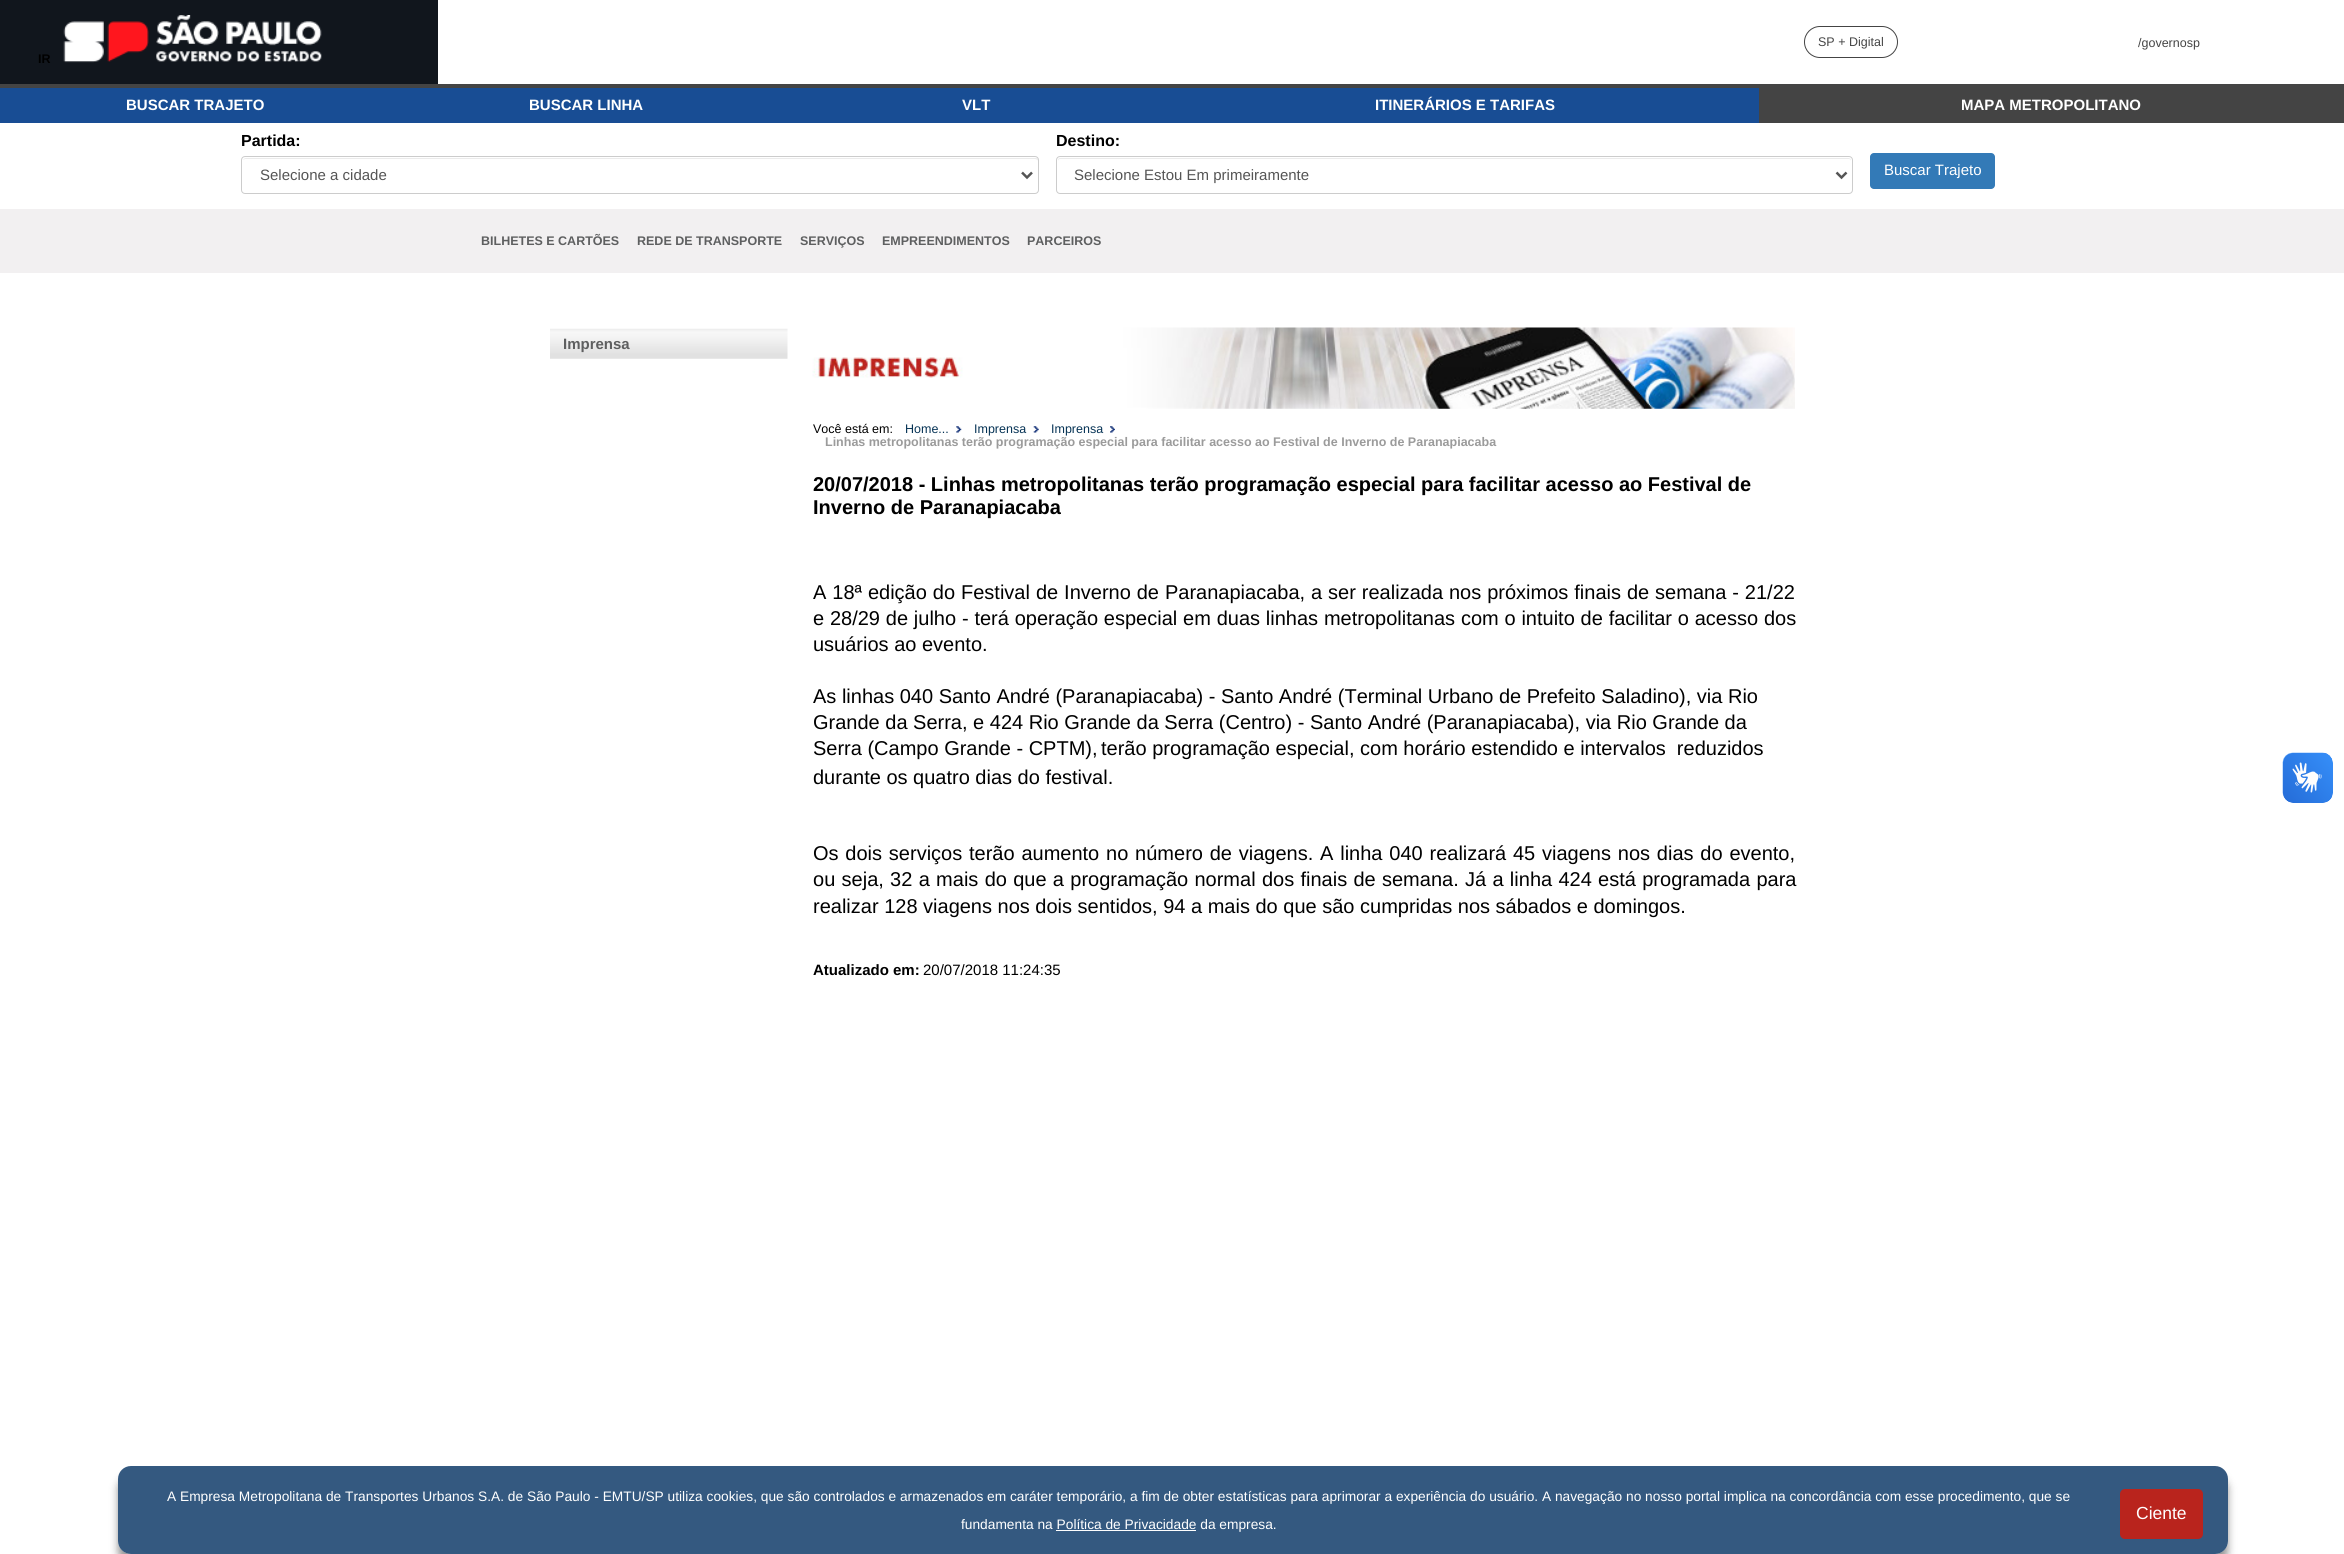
import math
import cairocffi as cairo

surface = cairo.ImageSurface(cairo.FORMAT_RGB24, 2344, 1554)
ctx = cairo.Context(surface)
options = cairo.FontOptions()
options.set_hint_metrics(cairo.HINT_METRICS_OFF)
options.set_hint_style(cairo.HINT_STYLE_NONE)
ctx.set_font_options(options)
ctx.set_miter_limit(4)


def rgb(r, g, b):
    ctx.set_source_rgb(r / 255, g / 255, b / 255)


def face(family, size, italic, bold):
    ctx.select_font_face(family, cairo.FONT_SLANT_ITALIC if italic else cairo.FONT_SLANT_NORMAL, cairo.FONT_WEIGHT_BOLD if bold else cairo.FONT_WEIGHT_NORMAL)
    ctx.set_font_size(size)


def label(x, y, s):
    ctx.move_to(x, y)
    ctx.show_text(s)


def tracked(x, y, s, letter, word):
    ctx.move_to(x, y)
    for ch in s:
        ctx.show_text(ch)
        ctx.rel_move_to(letter + word * (ch == ' '), 0)


def rect(x, y, w, h):
    ctx.rectangle(x, y, w, h)
    ctx.fill()


def rrect(x, y, w, h, r):
    ctx.new_sub_path()
    for i, (u, v) in enumerate([(x + w - r, y + h - r), (x + r, y + h - r), (x + r, y + r), (x + w - r, y + r)]):
        ctx.arc(u, v, r, i * math.pi / 2, (i + 1) * math.pi / 2)
    ctx.close_path()


def soft_shadow(x, y, w, h, r, blur, alpha):
    ctx.push_group_with_content(cairo.CONTENT_ALPHA)
    ctx.set_operator(cairo.OPERATOR_SOURCE)
    for i in range(15, -16, -2):
        e = blur * i / 6
        if min(w, h) + 2 * e > 0:
            ctx.set_source_rgba(0, 0, 0, alpha * math.erfc((i - 1) / 8.5) / 2)
            rrect(x - e, y - e, w + 2 * e, h + 2 * e, max(0, min(r + e + blur * .6, min(w, h) / 2 + e)))
            ctx.fill()
    ctx.mask(ctx.pop_group())


def image(path, x, y, w, h):
    ctx.save()
    ctx.set_source_surface(cairo.ImageSurface.create_from_png(path), x, y)
    ctx.rectangle(x, y, w, h)
    ctx.fill()
    ctx.restore()


rgb(255, 255, 255)
ctx.paint()
rgb(68, 68, 68)
rect(0, 84, 2344, 4)
rrect(1804.5, 26.5, 93, 31, 15.5)
ctx.set_line_width(1)
ctx.stroke()
face('Liberation Sans', 12.5, 0, 0)
label(1818, 46, 'SP + Digital')
label(2138, 47, '/governosp')
rgb(17, 22, 29)
rect(0, 0, 438, 84)
face('Liberation Sans', 12.5, 0, 1)
rgb(0, 0, 0)
label(38, 63, 'IR')
image('image0.png', 63, 15, 259, 48)
rgb(24, 77, 148)
rect(0, 88, 1759, 35)
face('Liberation Sans', 15, 0, 1)
rgb(255, 255, 255)
label(126, 110, 'BUSCAR TRAJETO')
label(529, 110, 'BUSCAR LINHA')
label(962, 110, 'VLT')
label(1375, 110, 'ITINERÁRIOS E TARIFAS')
rgb(68, 68, 68)
rect(1759, 88, 585, 35)
rgb(255, 255, 255)
label(1961, 110, 'MAPA METROPOLITANO')
face('Liberation Sans', 16, 0, 1)
rgb(0, 0, 0)
label(241, 146, 'Partida:')
rgb(235, 235, 235)
ctx.new_path()
ctx.move_to(245, 159)
ctx.line_to(1035, 159)
ctx.curve_to(1036, 159, 1038, 160, 1038, 161)
ctx.line_to(1038, 160)
ctx.curve_to(1038, 159, 1037, 158, 1036, 158)
ctx.line_to(246, 158)
ctx.curve_to(244, 158, 244, 159, 243, 160)
ctx.close_path()
ctx.fill()
rrect(241.5, 156.5, 797, 37, 3.5)
rgb(204, 204, 204)
ctx.stroke()
ctx.new_path()
ctx.move_to(1022, 172.5)
ctx.line_to(1027, 177.5)
ctx.line_to(1032, 172.5)
rgb(85, 85, 85)
ctx.set_line_width(2.5)
ctx.stroke()
face('Liberation Sans', 15, 0, 0)
label(260, 180, 'Selecione a cidade')
face('Liberation Sans', 16, 0, 1)
rgb(0, 0, 0)
label(1056, 146, 'Destino:')
rgb(235, 235, 235)
ctx.new_path()
ctx.move_to(1060, 159)
ctx.line_to(1849, 159)
ctx.curve_to(1850, 159, 1851, 160, 1851, 161)
ctx.line_to(1851, 160)
ctx.curve_to(1851, 159, 1850, 158, 1848, 158)
ctx.line_to(1060, 158)
ctx.curve_to(1059, 158, 1058, 159, 1058, 160)
ctx.line_to(1058, 161)
ctx.curve_to(1058, 160, 1059, 159, 1060, 159)
ctx.close_path()
ctx.fill()
rrect(1056.5, 156.5, 796, 37, 3.5)
rgb(204, 204, 204)
ctx.set_line_width(1)
ctx.stroke()
ctx.new_path()
ctx.move_to(1836.5, 172.5)
ctx.line_to(1841.5, 177.5)
ctx.line_to(1846.5, 172.5)
rgb(85, 85, 85)
ctx.set_line_width(2.5)
ctx.stroke()
face('Liberation Sans', 15, 0, 0)
label(1074, 180, 'Selecione Estou Em primeiramente')
rgb(51, 122, 183)
rrect(1870, 153, 125, 36, 4)
ctx.fill()
rgb(255, 255, 255)
label(1884, 175, 'Buscar Trajeto')
rgb(242, 240, 241)
rect(0, 209, 2344, 64)
face('Liberation Sans', 12.5, 0, 1)
rgb(94, 95, 96)
label(481, 245, 'BILHETES E CARTÕES')
label(637, 245, 'REDE DE TRANSPORTE')
label(800, 245, 'SERVIÇOS')
label(882, 245, 'EMPREENDIMENTOS')
label(1027, 245, 'PARCEIROS')
image('image1.png', 550, 328, 238, 31)
face('Liberation Sans', 15, 0, 1)
label(563, 349, 'Imprensa')
image('image2.png', 812, 327, 983, 82)
face('Liberation Sans', 12.5, 0, 0)
rgb(0, 0, 0)
label(813, 433, 'Você está em:')
image('image3.png', 956, 426, 6, 7)
rgb(6, 51, 85)
label(905, 433, 'Home...')
image('image4.png', 1033, 426, 6, 7)
label(974, 433, 'Imprensa')
image('image5.png', 1110, 426, 5, 7)
label(1051, 433, 'Imprensa')
face('Liberation Sans', 12.5, 0, 1)
rgb(155, 155, 155)
label(825, 446, 'Linhas metropolitanas terão programação especial para facilitar acesso ao Festival de Inverno de Paranapiacaba')
face('Liberation Sans', 20, 0, 1)
rgb(0, 0, 0)
label(813, 491, '20/07/2018 - Linhas metropolitanas terão programação especial para facilitar acesso ao Festival de')
label(813, 514, 'Inverno de Paranapiacaba')
face('Liberation Sans', 20, 0, 0)
tracked(813, 599, 'A 18ª edição do Festival de Inverno de Paranapiacaba, a ser realizada nos próximos finais de semana - 21/22', 0, 0.4)
tracked(813, 625, 'e 28/29 de julho - terá operação especial em duas linhas metropolitanas com o intuito de facilitar o acesso dos', 0, 0.25)
label(813, 651, 'usuários ao evento.')
label(813, 703, 'As linhas 040 Santo André (Paranapiacaba) - Santo André (Terminal Urbano de Prefeito Saladino), via Rio')
label(813, 729, 'Grande da Serra, e 424 Rio Grande da Serra (Centro) - Santo André (Paranapiacaba), via Rio Grande da')
label(813, 755, 'Serra (Campo Grande - CPTM),')
label(1101, 755, 'terão programação especial, com horário estendido e intervalos  reduzidos')
label(813, 784, 'durante os quatro dias do festival.')
tracked(813, 860, 'Os dois serviços terão aumento no número de viagens. A linha 040 realizará 45 viagens nos dias do evento,', 0, 1.25)
tracked(813, 886, 'ou seja, 32 a mais do que a programação normal dos finais de semana. Já a linha 424 está programada para', 0, 0.75)
label(813, 913, 'realizar 128 viagens nos dois sentidos, 94 a mais do que são cumpridas nos sábados e domingos.')
face('Liberation Sans', 15, 0, 1)
label(813, 975, 'Atualizado em:')
face('Liberation Sans', 15, 0, 0)
label(923, 975, '20/07/2018 11:24:35')
image('image6.png', 2282, 752, 51, 51)
image('image7.png', 2283, 753, 50, 50)
ctx.save()
ctx.set_fill_rule(cairo.FILL_RULE_EVEN_ODD)
ctx.new_path()
ctx.move_to(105, 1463)
ctx.line_to(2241, 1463)
ctx.line_to(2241, 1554)
ctx.line_to(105, 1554)
ctx.close_path()
ctx.move_to(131, 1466)
ctx.line_to(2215, 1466)
ctx.curve_to(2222, 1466, 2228, 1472, 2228, 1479)
ctx.line_to(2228, 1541)
ctx.curve_to(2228, 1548, 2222, 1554, 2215, 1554)
ctx.line_to(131, 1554)
ctx.curve_to(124, 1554, 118, 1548, 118, 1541)
ctx.line_to(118, 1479)
ctx.curve_to(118, 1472, 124, 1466, 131, 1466)
ctx.close_path()
ctx.clip()
rgb(0, 0, 0)
soft_shadow(118, 1476, 2110, 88, 13, 4, 0.41)
ctx.restore()
ctx.set_source_rgba(0.008, 0.188, 0.376, 0.8)
rrect(118, 1466, 2110, 88, 13)
ctx.fill()
face('Liberation Sans', 13.75, 0, 0)
rgb(255, 255, 255)
label(167, 1501, 'A Empresa Metropolitana de Transportes Urbanos S.A. de São Paulo - EMTU/SP utiliza cookies, que são controlados e armazenados em caráter temporário, a fim de obter estatísticas para aprimorar a experiência do usuário. A navegação no nosso portal implica na concordância com esse procedimento, que se')
label(961, 1529, 'fundamenta na Política de Privacidade da empresa.')
rect(1056, 1530, 140, 1)
rgb(185, 36, 29)
rrect(2120, 1489, 83, 50, 5)
ctx.fill()
face('Liberation Sans', 17.5, 0, 0)
rgb(255, 255, 255)
label(2136, 1519, 'Ciente')
surface.write_to_png('render.png')
